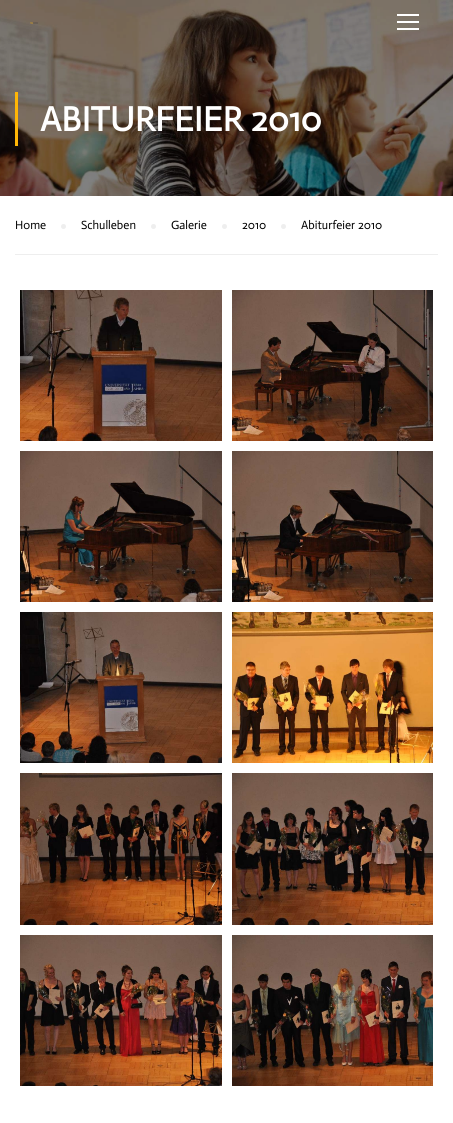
import math
import cairocffi as cairo

surface = cairo.ImageSurface(cairo.FORMAT_RGB24, 453, 1123)
ctx = cairo.Context(surface)
options = cairo.FontOptions()
options.set_hint_metrics(cairo.HINT_METRICS_OFF)
options.set_hint_style(cairo.HINT_STYLE_NONE)
ctx.set_font_options(options)
ctx.set_miter_limit(4)


def rgb(r, g, b):
    ctx.set_source_rgb(r / 255, g / 255, b / 255)


def face(family, size, italic, bold):
    ctx.select_font_face(family, cairo.FONT_SLANT_ITALIC if italic else cairo.FONT_SLANT_NORMAL, cairo.FONT_WEIGHT_BOLD if bold else cairo.FONT_WEIGHT_NORMAL)
    ctx.set_font_size(size)


def label(x, y, s):
    ctx.move_to(x, y)
    ctx.show_text(s)


def rect(x, y, w, h):
    ctx.rectangle(x, y, w, h)
    ctx.fill()


def image(path, x, y, w, h):
    ctx.save()
    ctx.set_source_surface(cairo.ImageSurface.create_from_png(path), x, y)
    ctx.rectangle(x, y, w, h)
    ctx.fill()
    ctx.restore()


rgb(255, 255, 255)
ctx.paint()
image('image1.png', 0, 0, 453, 196)
image('image0.png', 30, 22, 8, 2)
rgb(255, 255, 255)
rect(397, 14, 22, 2)
rect(397, 21, 22, 2)
rect(397, 28, 22, 2)
rgb(255, 182, 6)
rect(15, 92, 3, 54)
face('Actor', 35, 0, 1)
rgb(255, 255, 255)
label(40, 131, 'ABITURFEIER 2010')
rgb(238, 238, 238)
rect(15, 254, 423, 1)
face('Actor', 12, 0, 0)
rgb(0, 0, 0)
label(15, 229, 'Home')
rgb(238, 238, 238)
ctx.new_path()
ctx.arc(63.5, 226.5, 2.5, 0, 2 * math.pi)
ctx.fill()
rgb(0, 0, 0)
label(81, 229, 'Schulleben')
rgb(238, 238, 238)
ctx.new_path()
ctx.arc(153.5, 226.5, 2.5, 0, 2 * math.pi)
ctx.fill()
rgb(0, 0, 0)
label(171, 229, 'Galerie')
rgb(238, 238, 238)
ctx.new_path()
ctx.arc(224.5, 226.5, 2.5, 0, 2 * math.pi)
ctx.fill()
rgb(0, 0, 0)
label(242, 229, '2010')
rgb(238, 238, 238)
ctx.new_path()
ctx.arc(283.5, 226.5, 2.5, 0, 2 * math.pi)
ctx.fill()
rgb(0, 0, 0)
label(301, 229, 'Abiturfeier 2010')
image('image2.png', 20, 290, 202, 151)
image('image3.png', 232, 290, 201, 151)
image('image4.png', 20, 451, 202, 151)
image('image5.png', 232, 451, 201, 151)
image('image6.png', 20, 612, 202, 151)
image('image7.png', 232, 612, 201, 151)
image('image8.png', 20, 773, 202, 152)
image('image9.png', 232, 773, 201, 152)
image('image10.png', 20, 935, 202, 151)
image('image11.png', 232, 935, 201, 151)
surface.write_to_png('render.png')
